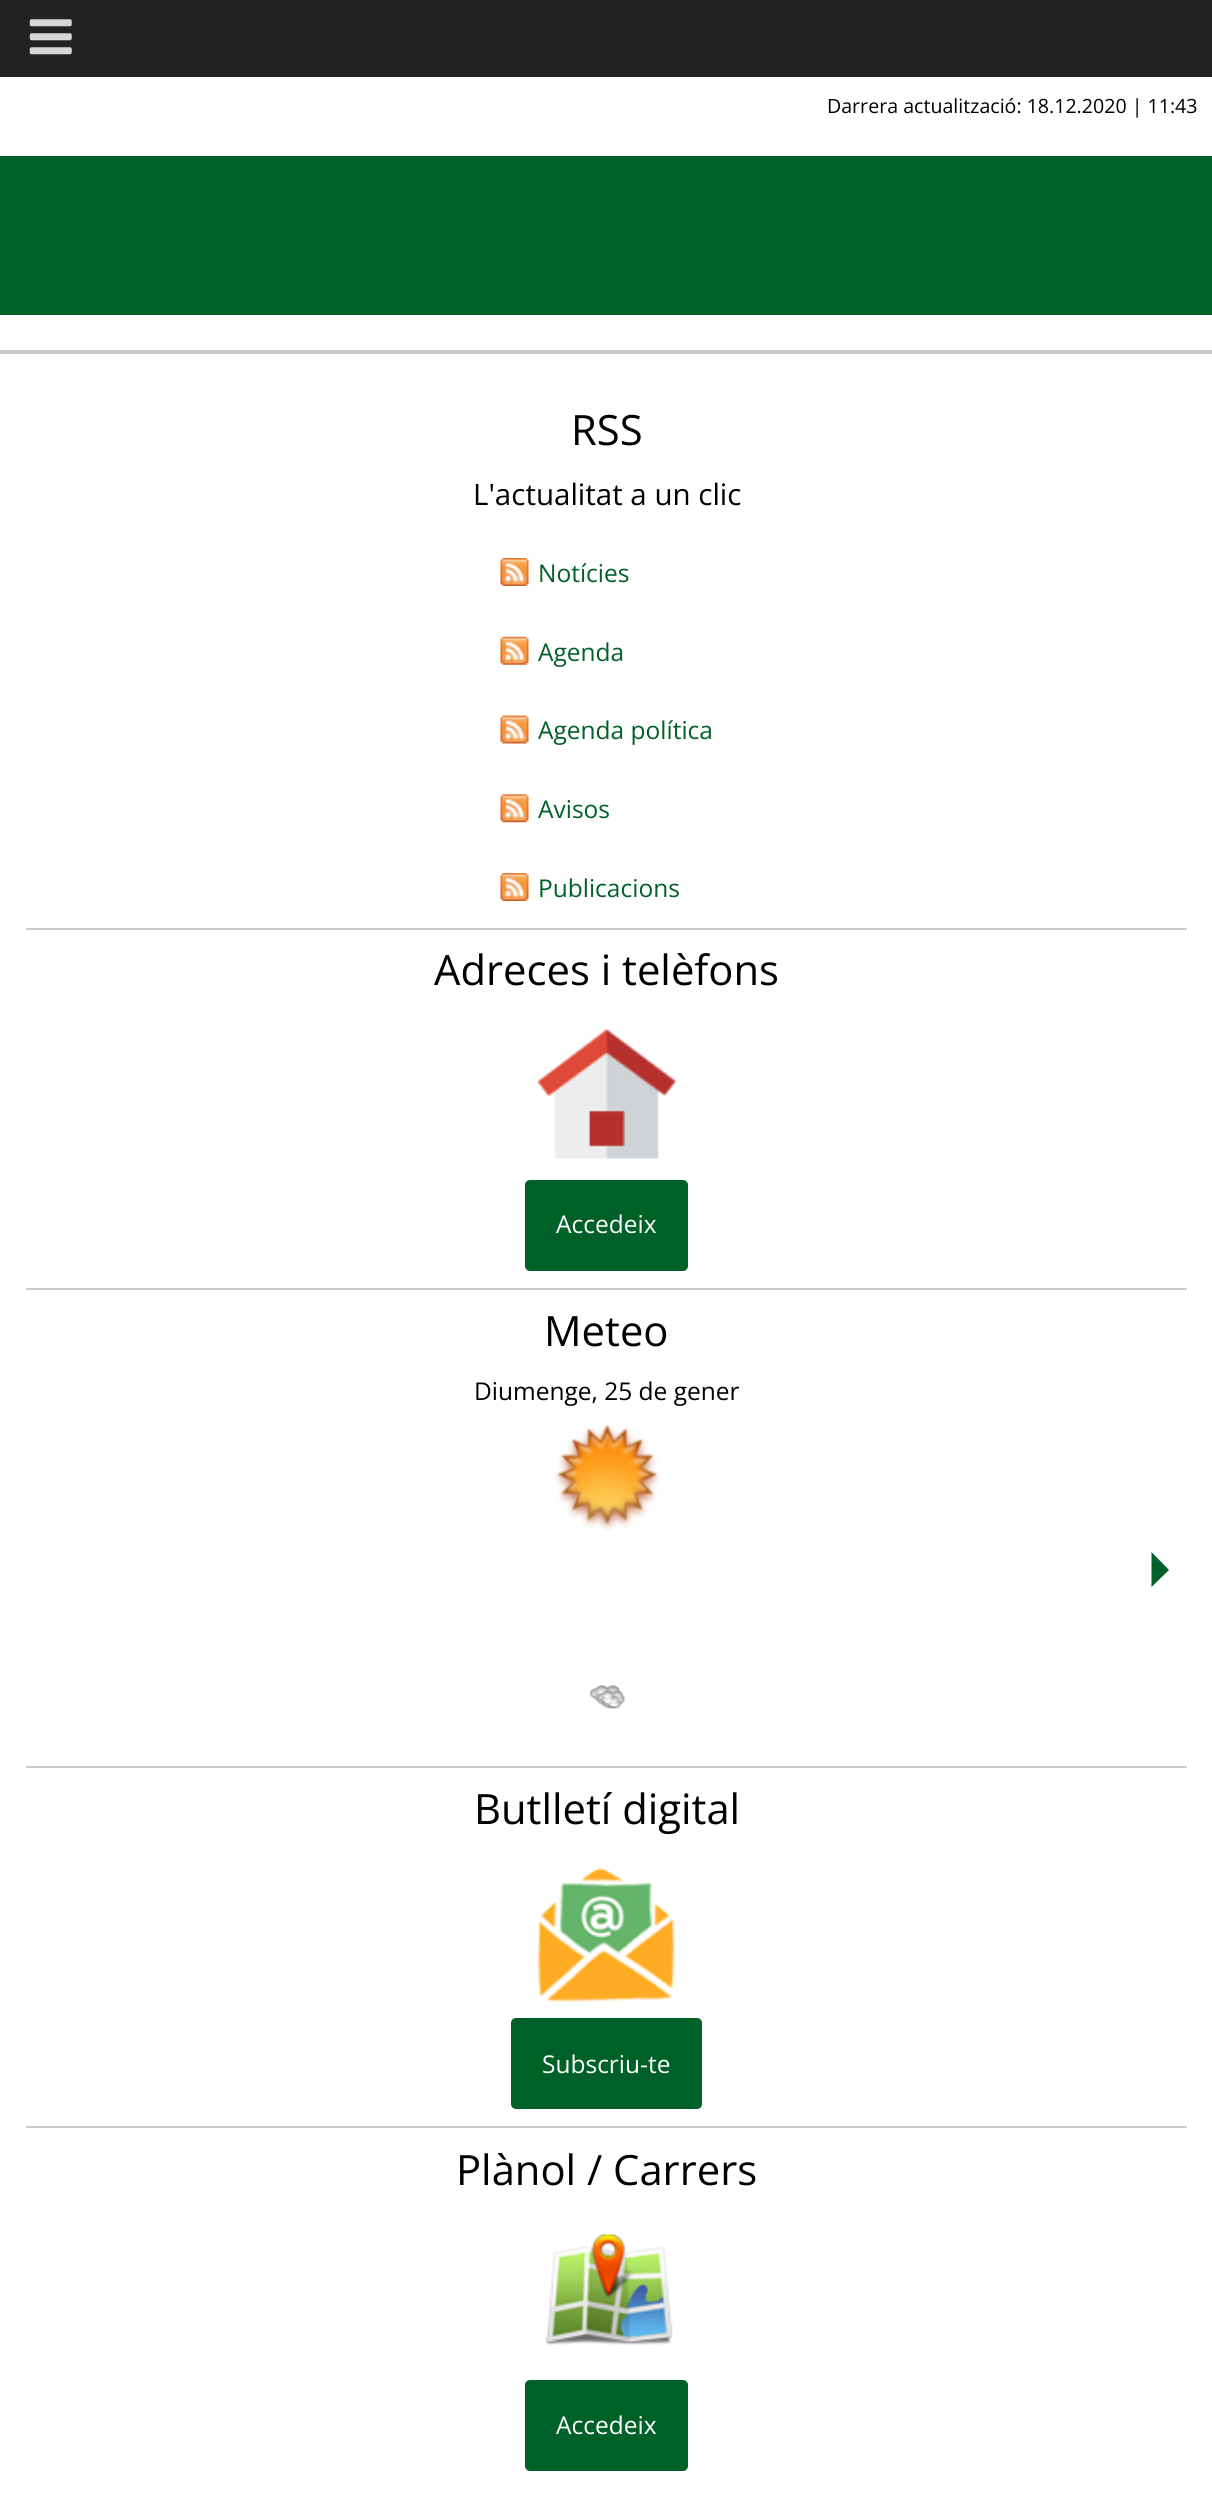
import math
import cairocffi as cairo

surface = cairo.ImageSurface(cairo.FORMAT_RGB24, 1212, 2510)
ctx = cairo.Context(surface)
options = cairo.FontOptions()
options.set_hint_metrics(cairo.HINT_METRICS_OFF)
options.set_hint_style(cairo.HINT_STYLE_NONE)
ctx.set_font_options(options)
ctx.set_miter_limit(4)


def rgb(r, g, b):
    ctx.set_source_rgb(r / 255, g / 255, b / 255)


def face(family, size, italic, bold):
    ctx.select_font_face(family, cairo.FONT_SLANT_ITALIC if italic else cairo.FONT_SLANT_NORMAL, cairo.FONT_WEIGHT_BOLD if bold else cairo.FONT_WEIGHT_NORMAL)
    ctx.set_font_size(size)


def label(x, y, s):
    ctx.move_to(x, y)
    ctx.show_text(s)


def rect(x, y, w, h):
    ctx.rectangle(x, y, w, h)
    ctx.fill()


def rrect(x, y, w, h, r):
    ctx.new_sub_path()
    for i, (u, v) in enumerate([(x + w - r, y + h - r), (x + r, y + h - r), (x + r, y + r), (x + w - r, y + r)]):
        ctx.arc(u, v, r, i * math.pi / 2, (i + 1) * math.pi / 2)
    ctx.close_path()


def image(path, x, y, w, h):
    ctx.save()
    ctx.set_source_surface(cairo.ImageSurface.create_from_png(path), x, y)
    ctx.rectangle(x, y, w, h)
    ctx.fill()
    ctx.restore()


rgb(255, 255, 255)
ctx.paint()
rgb(34, 34, 34)
rect(0, 0, 1212, 77)
image('image0.png', 29, 19, 43, 36)
face('Open Sans', 19.6, 0, 0)
rgb(0, 0, 0)
label(827, 113, 'Darrera actualització: 18.12.2020 | 11:43')
rgb(0, 97, 40)
rect(0, 156, 1212, 159)
rgb(204, 204, 204)
rect(0, 350, 1212, 4)
rect(26, 928, 1161, 2)
face('Open Sans', 41.75, 0, 0)
rgb(0, 0, 0)
label(571, 445, 'RSS')
face('Open Sans', 29.5, 0, 0)
label(473, 505, 'L\'actualitat a un clic')
image('image1.png', 500, 558, 29, 28)
face('Open Sans', 24.5, 0, 0)
rgb(0, 97, 40)
label(538, 582, 'Notícies')
image('image2.png', 500, 636, 29, 29)
label(538, 661, 'Agenda')
image('image3.png', 500, 715, 29, 29)
label(538, 739, 'Agenda política')
image('image4.png', 500, 794, 29, 29)
label(538, 818, 'Avisos')
image('image1.png', 500, 873, 29, 28)
label(538, 897, 'Publicacions')
rgb(204, 204, 204)
rect(26, 1288, 1161, 2)
face('Open Sans', 41.75, 0, 0)
rgb(0, 0, 0)
label(434, 985, 'Adreces i telèfons')
image('image5.png', 536, 1028, 140, 132)
rgb(0, 97, 40)
rrect(525, 1180, 163, 91, 5)
ctx.fill()
face('Open Sans', 24.5, 0, 0)
rgb(255, 255, 255)
label(556, 1233, 'Accedeix')
rgb(204, 204, 204)
rect(26, 1766, 1161, 2)
face('Open Sans', 41.75, 0, 0)
rgb(0, 0, 0)
label(544, 1346, 'Meteo')
face('Open Sans', 24.5, 0, 0)
label(474, 1400, 'Diumenge, 25 de gener')
image('image6.png', 555, 1424, 105, 107)
image('image7.png', 589, 1685, 37, 24)
rgb(0, 97, 40)
ctx.new_path()
ctx.move_to(1151.5, 1587)
ctx.line_to(1151.5, 1552)
ctx.line_to(1169, 1570)
ctx.close_path()
ctx.fill()
rgb(204, 204, 204)
rect(26, 2126, 1161, 2)
face('Open Sans', 41.75, 0, 0)
rgb(0, 0, 0)
label(474, 1824, 'Butlletí digital')
image('image8.png', 537, 1867, 139, 136)
rgb(0, 97, 40)
rrect(511, 2018, 191, 91, 5)
ctx.fill()
face('Open Sans', 24.5, 0, 0)
rgb(255, 255, 255)
label(542, 2073, 'Subscriu-te')
face('Open Sans', 41.75, 0, 0)
rgb(0, 0, 0)
label(456, 2185, 'Plànol / Carrers')
image('image9.png', 545, 2234, 128, 111)
rgb(0, 97, 40)
rrect(525, 2380, 163, 91, 5)
ctx.fill()
face('Open Sans', 24.5, 0, 0)
rgb(255, 255, 255)
label(556, 2434, 'Accedeix')
surface.write_to_png('render.png')
